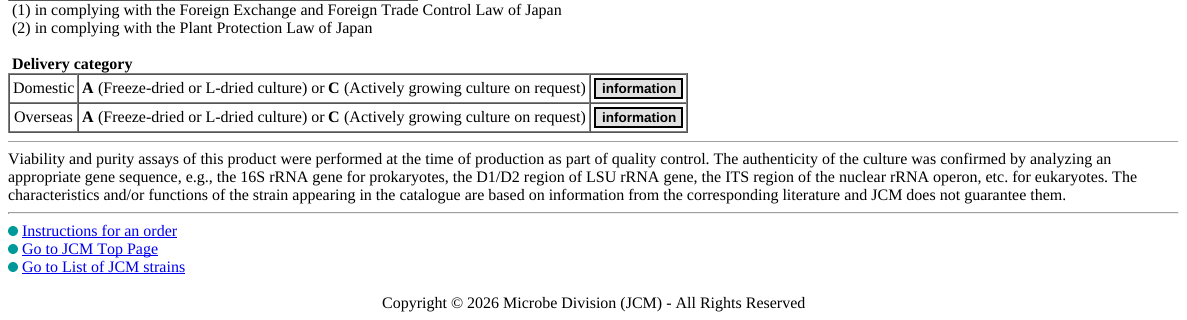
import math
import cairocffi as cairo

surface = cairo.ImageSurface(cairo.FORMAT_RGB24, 1187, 320)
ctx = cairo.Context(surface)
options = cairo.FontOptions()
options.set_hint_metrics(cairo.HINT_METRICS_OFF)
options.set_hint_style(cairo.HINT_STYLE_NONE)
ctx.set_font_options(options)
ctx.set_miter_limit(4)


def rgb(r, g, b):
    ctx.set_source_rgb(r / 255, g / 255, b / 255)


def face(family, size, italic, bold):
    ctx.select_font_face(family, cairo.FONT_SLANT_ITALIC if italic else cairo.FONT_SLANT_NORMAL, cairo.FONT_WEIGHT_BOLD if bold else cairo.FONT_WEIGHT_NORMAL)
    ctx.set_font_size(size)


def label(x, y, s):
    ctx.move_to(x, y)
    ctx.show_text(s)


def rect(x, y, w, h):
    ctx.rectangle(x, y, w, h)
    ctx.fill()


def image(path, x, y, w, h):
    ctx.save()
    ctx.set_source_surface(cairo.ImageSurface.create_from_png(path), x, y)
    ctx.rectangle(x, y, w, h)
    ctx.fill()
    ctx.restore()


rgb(255, 255, 255)
ctx.paint()
rgb(85, 85, 85)
rect(8, 0, 410, 1)
rgb(128, 128, 128)
rect(8, 0, 1, 1)
face('Liberation Serif', 16, 0, 0)
rgb(0, 0, 0)
label(12, 15, '(1) in complying with the Foreign Exchange and Foreign Trade Control Law of Japan')
label(12, 33, '(2) in complying with the Plant Protection Law of Japan')
face('Liberation Serif', 16, 0, 1)
label(12, 69, 'Delivery category')
rgb(128, 128, 128)
rect(8, 73, 680, 1)
rgb(85, 85, 85)
rect(687, 73, 1, 60)
rect(8, 132, 680, 1)
rgb(128, 128, 128)
rect(8, 73, 1, 60)
rgb(85, 85, 85)
rect(9, 74, 678, 1)
rgb(128, 128, 128)
rect(77, 74, 1, 29)
rect(9, 102, 69, 1)
rgb(85, 85, 85)
rect(9, 74, 1, 29)
face('Liberation Serif', 16, 0, 0)
rgb(0, 0, 0)
label(13, 93, 'Domestic')
rgb(128, 128, 128)
rect(589, 74, 1, 29)
rect(78, 102, 512, 1)
rgb(85, 85, 85)
rect(78, 74, 1, 29)
face('Liberation Serif', 16, 0, 1)
rgb(0, 0, 0)
label(82, 93, 'A')
face('Liberation Serif', 16, 0, 0)
label(98, 93, '(Freeze-dried or L-dried culture) or')
face('Liberation Serif', 16, 0, 1)
label(328, 93, 'C')
face('Liberation Serif', 16, 0, 0)
label(344, 93, '(Actively growing culture on request)')
rgb(128, 128, 128)
rect(686, 74, 1, 29)
rect(590, 102, 97, 1)
rgb(85, 85, 85)
rect(590, 74, 1, 29)
rgb(225, 225, 225)
ctx.rectangle(595, 79, 87, 19)
ctx.fill_preserve()
rgb(0, 0, 0)
ctx.stroke()
face('Liberation Sans', 13.5, 0, 1)
label(602, 93, 'information')
rgb(85, 85, 85)
rect(9, 103, 678, 1)
rgb(128, 128, 128)
rect(77, 103, 1, 29)
rect(9, 131, 69, 1)
rgb(85, 85, 85)
rect(9, 103, 1, 29)
face('Liberation Serif', 16, 0, 0)
rgb(0, 0, 0)
label(14, 122, 'Overseas')
rgb(128, 128, 128)
rect(589, 103, 1, 29)
rect(78, 131, 512, 1)
rgb(85, 85, 85)
rect(78, 103, 1, 29)
face('Liberation Serif', 16, 0, 1)
rgb(0, 0, 0)
label(82, 122, 'A')
face('Liberation Serif', 16, 0, 0)
label(98, 122, '(Freeze-dried or L-dried culture) or')
face('Liberation Serif', 16, 0, 1)
label(328, 122, 'C')
face('Liberation Serif', 16, 0, 0)
label(344, 122, '(Actively growing culture on request)')
rgb(128, 128, 128)
rect(686, 103, 1, 29)
rect(590, 131, 97, 1)
rgb(85, 85, 85)
rect(590, 103, 1, 29)
rgb(225, 225, 225)
ctx.rectangle(595, 108, 87, 19)
ctx.fill_preserve()
rgb(0, 0, 0)
ctx.stroke()
face('Liberation Sans', 13.5, 0, 1)
label(602, 122, 'information')
rgb(159, 159, 159)
rect(8, 141, 1171, 1)
rgb(238, 238, 238)
rect(1178, 141, 1, 1)
face('Liberation Serif', 16, 0, 0)
rgb(0, 0, 0)
label(8, 164, 'Viability and purity assays of this product were performed at the time of production as part of quality control. The authenticity of the culture was confirmed by analyzing an')
label(8, 182, 'appropriate gene sequence, e.g., the 16S rRNA gene for prokaryotes, the D1/D2 region of LSU rRNA gene, the ITS region of the nuclear rRNA operon, etc. for eukaryotes. The')
label(8, 200, 'characteristics and/or functions of the strain appearing in the catalogue are based on information from the corresponding literature and JCM does not guarantee them.')
rgb(159, 159, 159)
rect(8, 212, 1171, 1)
rgb(238, 238, 238)
rect(1178, 212, 1, 2)
rect(8, 213, 1171, 1)
rgb(159, 159, 159)
rect(8, 212, 1, 2)
image('image0.png', 8, 226, 10, 10)
rgb(0, 0, 238)
label(22, 236, 'Instructions for an order')
rect(22, 237, 155, 1)
image('image0.png', 8, 244, 10, 10)
rect(22, 255, 136, 1)
label(22, 254, 'Go to JCM Top Page')
image('image0.png', 8, 262, 10, 10)
label(22, 272, 'Go to List of JCM strains')
rect(22, 273, 163, 1)
rgb(0, 0, 0)
label(382, 308, 'Copyright © 2026 Microbe Division (JCM) - All Rights Reserved')
surface.write_to_png('render.png')
